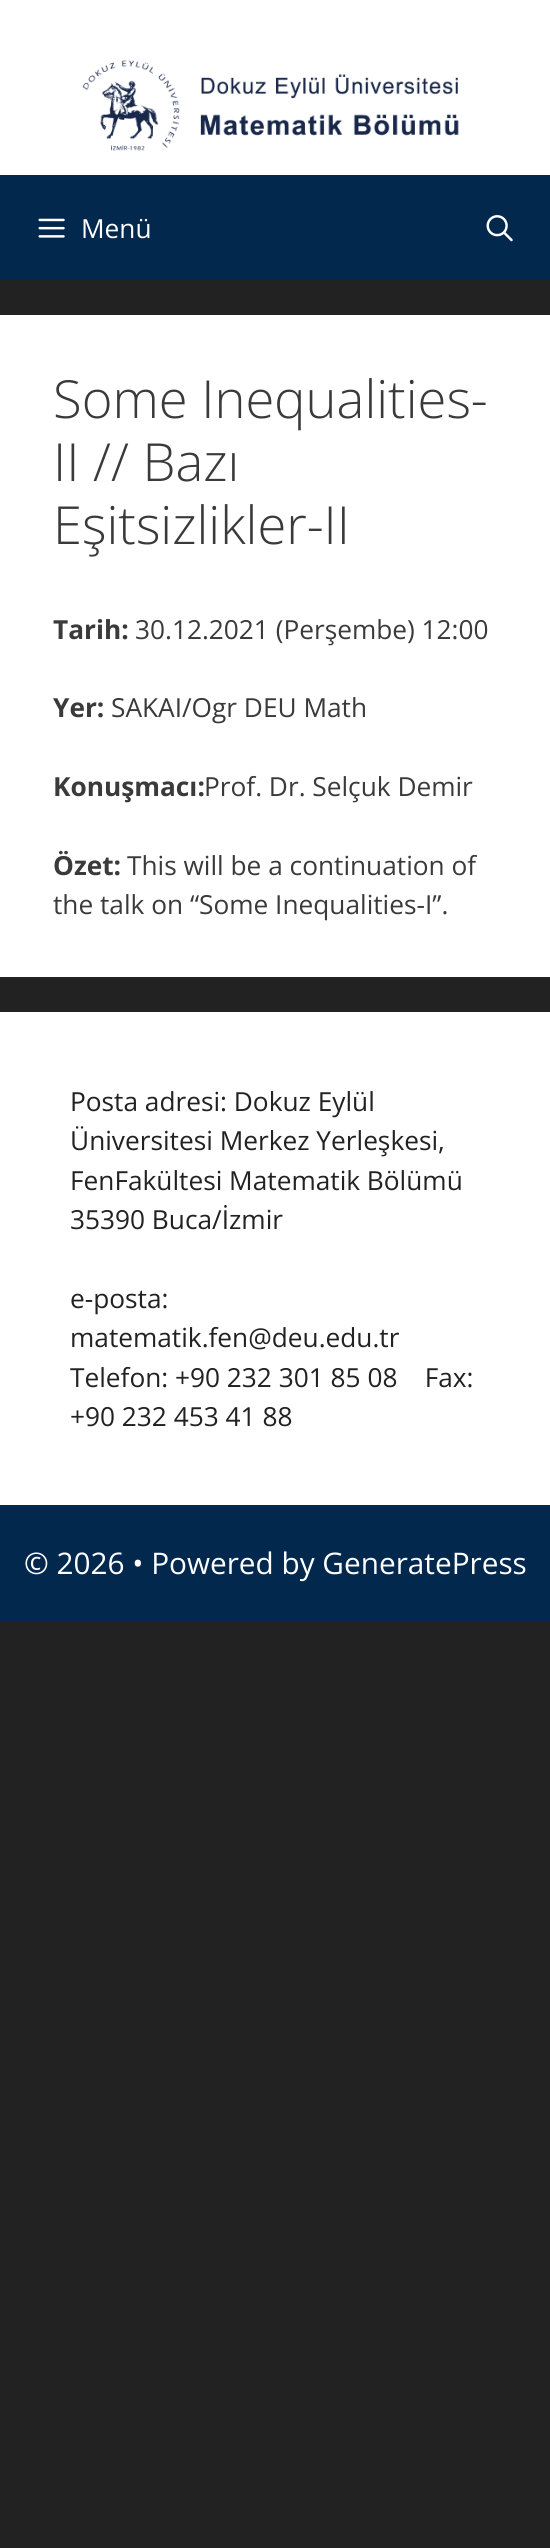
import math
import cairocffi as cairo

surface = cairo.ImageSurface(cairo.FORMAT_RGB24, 550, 2548)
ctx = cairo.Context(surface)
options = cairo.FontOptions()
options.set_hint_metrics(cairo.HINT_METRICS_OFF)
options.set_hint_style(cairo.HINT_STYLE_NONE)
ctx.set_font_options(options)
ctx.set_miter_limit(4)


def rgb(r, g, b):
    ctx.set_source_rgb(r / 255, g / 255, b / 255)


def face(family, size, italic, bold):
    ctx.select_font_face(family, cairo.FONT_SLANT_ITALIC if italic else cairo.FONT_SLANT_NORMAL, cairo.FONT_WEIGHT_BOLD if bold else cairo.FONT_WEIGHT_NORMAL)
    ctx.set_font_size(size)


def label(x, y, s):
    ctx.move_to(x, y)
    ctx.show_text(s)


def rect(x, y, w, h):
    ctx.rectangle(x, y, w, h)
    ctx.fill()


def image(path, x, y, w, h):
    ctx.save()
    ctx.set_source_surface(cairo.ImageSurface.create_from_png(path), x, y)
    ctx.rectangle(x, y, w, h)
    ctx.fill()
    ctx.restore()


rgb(34, 34, 34)
ctx.paint()
rgb(255, 255, 255)
rect(0, 0, 550, 175)
image('image0.png', 82, 60, 377, 91)
rgb(3, 40, 78)
rect(0, 175, 550, 105)
image('image1.png', 38, 218, 27, 20)
face('Open Sans', 26.25, 0, 0)
rgb(255, 255, 255)
label(81, 238, 'Menü')
image('image2.png', 486, 215, 27, 27)
rect(0, 315, 550, 662)
face('Open Sans Light', 52.5, 0, 0)
rgb(58, 58, 58)
label(53, 418, 'Some Inequalities-')
label(53, 481, 'II // Bazı')
label(53, 544, 'Eşitsizlikler-II')
face('Open Sans', 26.25, 0, 1)
label(53, 639, 'Tarih:')
face('Open Sans', 26.25, 0, 0)
label(135, 639, '30.12.2021 (Perşembe) 12:00')
face('Open Sans', 26.25, 0, 1)
label(53, 717, 'Yer:')
face('Open Sans', 26.25, 0, 0)
label(111, 717, 'SAKAI/Ogr DEU Math')
face('Open Sans', 26.25, 0, 1)
label(53, 796, 'Konuşmacı:')
face('Open Sans', 26.25, 0, 0)
label(204, 796, 'Prof. Dr. Selçuk Demir')
face('Open Sans', 26.25, 0, 1)
label(53, 875, 'Özet:')
face('Open Sans', 26.25, 0, 0)
label(127, 875, 'This will be a continuation of')
label(53, 914, 'the talk on “Some Inequalities-I”.')
rgb(255, 255, 255)
rect(0, 1012, 550, 493)
rgb(34, 34, 34)
label(70, 1111, 'Posta adresi: Dokuz Eylül')
label(70, 1150, 'Üniversitesi Merkez Yerleşkesi,')
label(70, 1190, 'FenFakültesi Matematik Bölümü')
label(70, 1229, '35390 Buca/İzmir')
label(70, 1308, 'e-posta:')
label(70, 1347, 'matematik.fen@deu.edu.tr')
label(70, 1387, 'Telefon: +90 232 301 85 08    Fax:')
label(70, 1426, '+90 232 453 41 88')
rgb(3, 40, 78)
rect(0, 1505, 550, 116)
face('Open Sans', 29.75, 0, 0)
rgb(255, 255, 255)
label(24, 1574, '© 2026 • Powered by GeneratePress')
surface.write_to_png('render.png')
